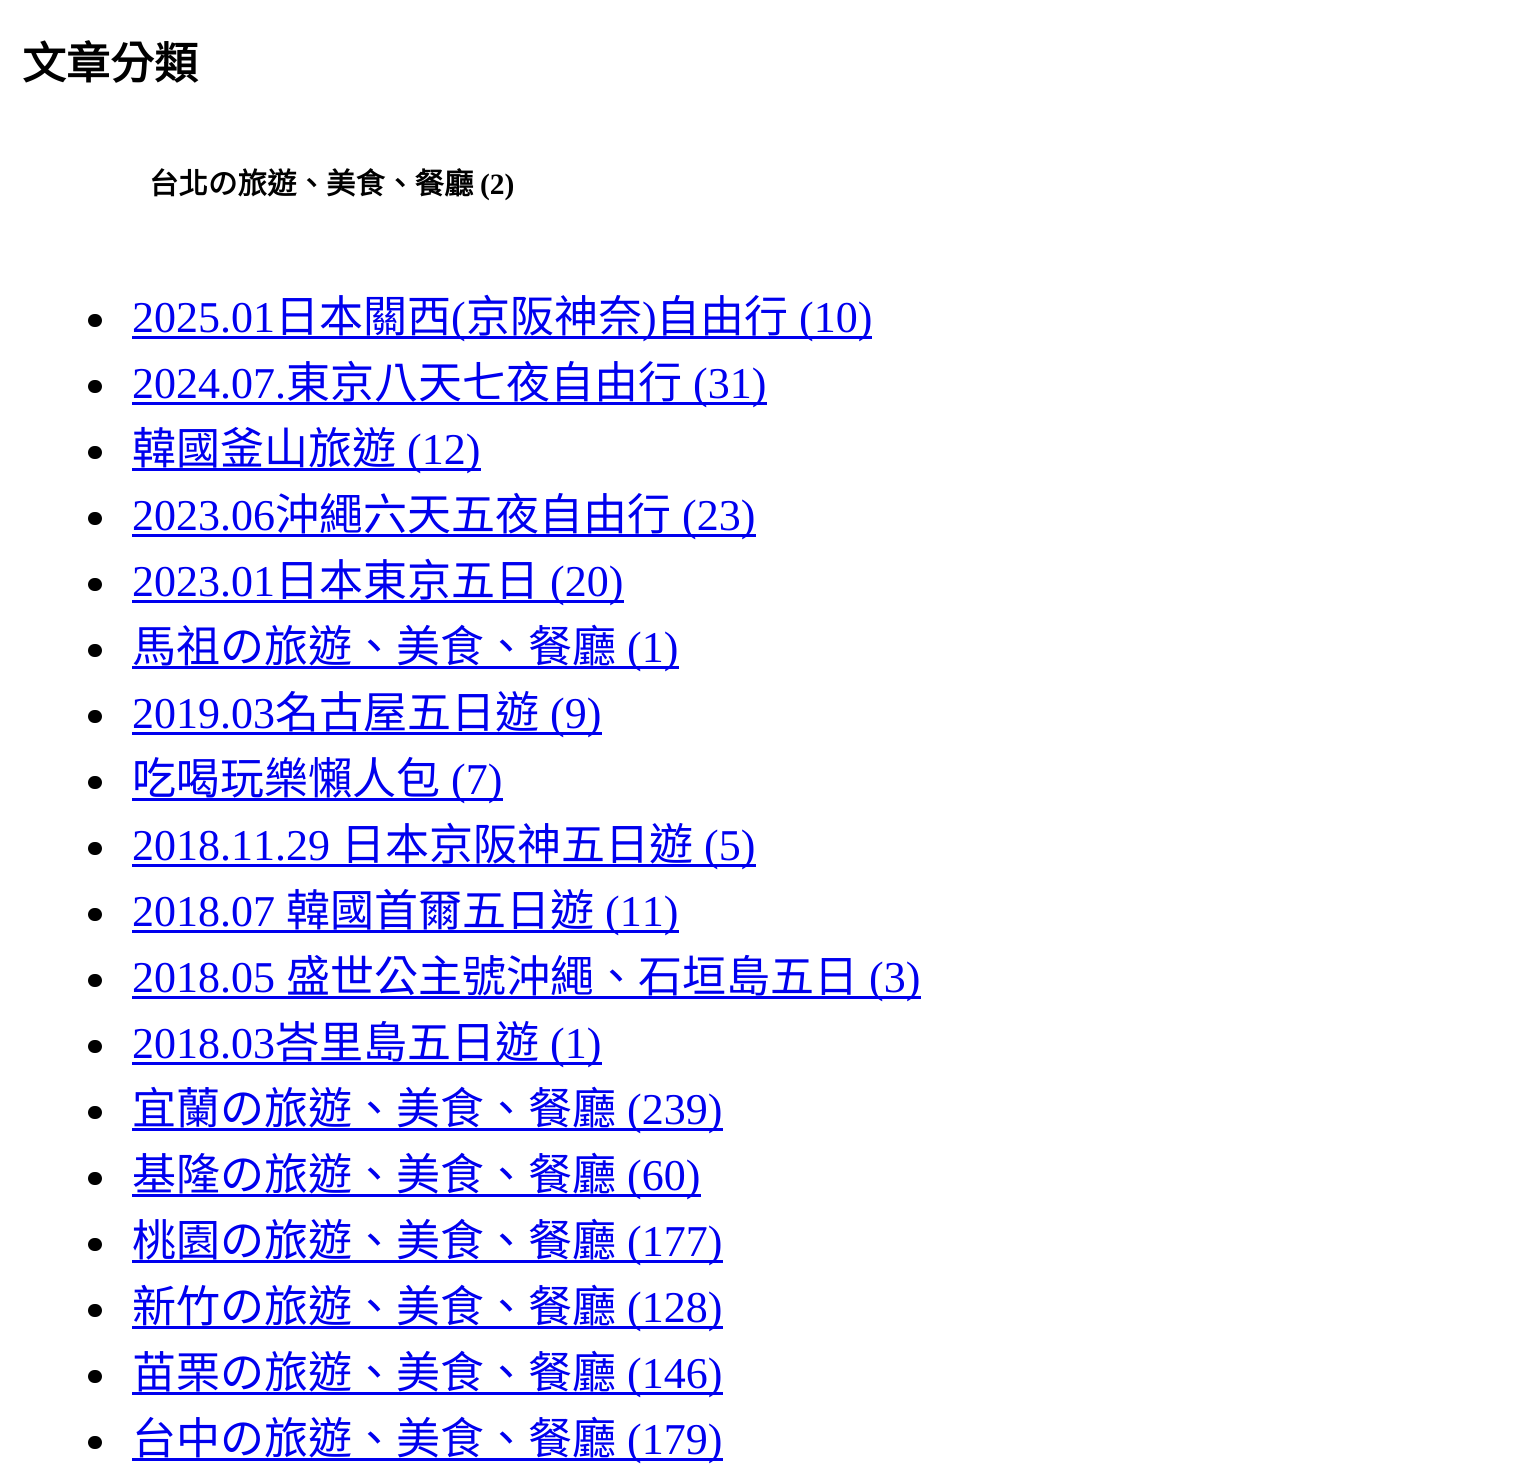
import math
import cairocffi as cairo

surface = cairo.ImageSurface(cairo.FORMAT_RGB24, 1539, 1475)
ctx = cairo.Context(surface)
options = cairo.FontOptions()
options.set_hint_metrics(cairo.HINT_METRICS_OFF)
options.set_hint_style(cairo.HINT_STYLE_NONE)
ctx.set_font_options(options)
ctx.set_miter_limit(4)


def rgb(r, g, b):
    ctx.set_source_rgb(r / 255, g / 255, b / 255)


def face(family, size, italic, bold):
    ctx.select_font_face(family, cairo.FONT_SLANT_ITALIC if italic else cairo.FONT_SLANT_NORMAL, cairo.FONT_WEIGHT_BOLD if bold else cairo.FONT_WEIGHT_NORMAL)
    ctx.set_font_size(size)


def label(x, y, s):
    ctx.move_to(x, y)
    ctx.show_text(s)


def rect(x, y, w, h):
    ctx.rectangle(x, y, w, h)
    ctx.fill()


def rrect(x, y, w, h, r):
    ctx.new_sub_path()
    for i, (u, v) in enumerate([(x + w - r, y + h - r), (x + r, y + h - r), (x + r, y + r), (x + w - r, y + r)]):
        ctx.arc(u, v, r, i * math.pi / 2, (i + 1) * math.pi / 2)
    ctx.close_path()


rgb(255, 255, 255)
ctx.paint()
face('Noto Sans CJK TC', 44, 0, 1)
rgb(0, 0, 0)
label(22, 79, '文章分類')
face('Noto Sans CJK TC', 29.5, 0, 1)
label(149, 194, '台北の旅遊、美食、餐廳')
face('Liberation Serif', 29.5, 0, 1)
label(480, 194, '(2)')
rrect(88, 314, 14, 13, 6.5)
ctx.fill()
face('Liberation Serif', 44, 0, 0)
rgb(0, 0, 238)
label(132, 332, '2025.01')
face('Noto Sans CJK TC', 44, 0, 0)
label(275, 332, '日本關西')
rect(132, 336, 740, 3)
face('Liberation Serif', 44, 0, 0)
label(451, 332, '(')
face('Noto Sans CJK TC', 44, 0, 0)
label(466, 332, '京阪神奈')
face('Liberation Serif', 44, 0, 0)
label(642, 332, ')')
face('Noto Sans CJK TC', 44, 0, 0)
label(656, 332, '自由行')
face('Liberation Serif', 44, 0, 0)
label(799, 332, '(10)')
rgb(0, 0, 0)
rrect(88, 380, 14, 13, 6.5)
ctx.fill()
rgb(0, 0, 238)
label(132, 398, '2024.07.')
face('Noto Sans CJK TC', 44, 0, 0)
label(286, 398, '東京八天七夜自由行')
rect(132, 402, 635, 3)
face('Liberation Serif', 44, 0, 0)
label(693, 398, '(31)')
rgb(0, 0, 0)
rrect(88, 446, 14, 13, 6.5)
ctx.fill()
face('Noto Sans CJK TC', 44, 0, 0)
rgb(0, 0, 238)
label(132, 464, '韓國釜山旅遊')
rect(132, 468, 349, 3)
face('Liberation Serif', 44, 0, 0)
label(407, 464, '(12)')
rgb(0, 0, 0)
rrect(88, 512, 14, 13, 6.5)
ctx.fill()
rgb(0, 0, 238)
label(132, 530, '2023.06')
face('Noto Sans CJK TC', 44, 0, 0)
label(275, 530, '沖繩六天五夜自由行')
rect(132, 534, 624, 3)
face('Liberation Serif', 44, 0, 0)
label(682, 530, '(23)')
rgb(0, 0, 0)
rrect(88, 578, 14, 13, 6.5)
ctx.fill()
rgb(0, 0, 238)
label(132, 596, '2023.01')
face('Noto Sans CJK TC', 44, 0, 0)
label(275, 596, '日本東京五日')
rect(132, 600, 492, 3)
face('Liberation Serif', 44, 0, 0)
label(550, 596, '(20)')
rgb(0, 0, 0)
rrect(88, 644, 14, 13, 6.5)
ctx.fill()
face('Noto Sans CJK TC', 44, 0, 0)
rgb(0, 0, 238)
label(132, 662, '馬祖の旅遊、美食、餐廳')
rect(132, 666, 547, 3)
face('Liberation Serif', 44, 0, 0)
label(627, 662, '(1)')
rgb(0, 0, 0)
rrect(88, 710, 14, 13, 6.5)
ctx.fill()
rgb(0, 0, 238)
label(132, 728, '2019.03')
face('Noto Sans CJK TC', 44, 0, 0)
label(275, 728, '名古屋五日遊')
rect(132, 732, 470, 3)
face('Liberation Serif', 44, 0, 0)
label(550, 728, '(9)')
rgb(0, 0, 0)
rrect(88, 776, 14, 13, 6.5)
ctx.fill()
face('Noto Sans CJK TC', 44, 0, 0)
rgb(0, 0, 238)
label(132, 794, '吃喝玩樂懶人包')
rect(132, 798, 371, 3)
face('Liberation Serif', 44, 0, 0)
label(451, 794, '(7)')
rgb(0, 0, 0)
rrect(88, 842, 14, 13, 6.5)
ctx.fill()
rgb(0, 0, 238)
label(132, 860, '2018.11.29')
face('Noto Sans CJK TC', 44, 0, 0)
label(341, 860, '日本京阪神五日遊')
rect(132, 864, 624, 3)
face('Liberation Serif', 44, 0, 0)
label(704, 860, '(5)')
rgb(0, 0, 0)
rrect(88, 908, 14, 13, 6.5)
ctx.fill()
rgb(0, 0, 238)
label(132, 926, '2018.07')
face('Noto Sans CJK TC', 44, 0, 0)
label(286, 926, '韓國首爾五日遊')
rect(132, 930, 547, 3)
face('Liberation Serif', 44, 0, 0)
label(605, 926, '(11)')
rgb(0, 0, 0)
rrect(88, 974, 14, 13, 6.5)
ctx.fill()
rgb(0, 0, 238)
label(132, 992, '2018.05')
face('Noto Sans CJK TC', 44, 0, 0)
label(286, 992, '盛世公主號沖繩、石垣島五日')
rect(132, 996, 789, 3)
face('Liberation Serif', 44, 0, 0)
label(869, 992, '(3)')
rgb(0, 0, 0)
rrect(88, 1040, 14, 13, 6.5)
ctx.fill()
rgb(0, 0, 238)
label(132, 1058, '2018.03')
face('Noto Sans CJK TC', 44, 0, 0)
label(275, 1058, '峇里島五日遊')
rect(132, 1062, 470, 3)
face('Liberation Serif', 44, 0, 0)
label(550, 1058, '(1)')
rgb(0, 0, 0)
rrect(88, 1106, 14, 13, 6.5)
ctx.fill()
face('Noto Sans CJK TC', 44, 0, 0)
rgb(0, 0, 238)
label(132, 1124, '宜蘭の旅遊、美食、餐廳')
rect(132, 1128, 591, 3)
face('Liberation Serif', 44, 0, 0)
label(627, 1124, '(239)')
rgb(0, 0, 0)
rrect(88, 1172, 14, 13, 6.5)
ctx.fill()
face('Noto Sans CJK TC', 44, 0, 0)
rgb(0, 0, 238)
label(132, 1190, '基隆の旅遊、美食、餐廳')
rect(132, 1194, 569, 3)
face('Liberation Serif', 44, 0, 0)
label(627, 1190, '(60)')
rgb(0, 0, 0)
rrect(88, 1238, 14, 13, 6.5)
ctx.fill()
face('Noto Sans CJK TC', 44, 0, 0)
rgb(0, 0, 238)
label(132, 1256, '桃園の旅遊、美食、餐廳')
rect(132, 1260, 591, 3)
face('Liberation Serif', 44, 0, 0)
label(627, 1256, '(177)')
rgb(0, 0, 0)
rrect(88, 1304, 14, 13, 6.5)
ctx.fill()
face('Noto Sans CJK TC', 44, 0, 0)
rgb(0, 0, 238)
label(132, 1322, '新竹の旅遊、美食、餐廳')
rect(132, 1326, 591, 3)
face('Liberation Serif', 44, 0, 0)
label(627, 1322, '(128)')
rgb(0, 0, 0)
rrect(88, 1370, 14, 13, 6.5)
ctx.fill()
face('Noto Sans CJK TC', 44, 0, 0)
rgb(0, 0, 238)
label(132, 1388, '苗栗の旅遊、美食、餐廳')
rect(132, 1392, 591, 3)
face('Liberation Serif', 44, 0, 0)
label(627, 1388, '(146)')
rgb(0, 0, 0)
rrect(88, 1436, 14, 13, 6.5)
ctx.fill()
face('Noto Sans CJK TC', 44, 0, 0)
rgb(0, 0, 238)
label(132, 1454, '台中の旅遊、美食、餐廳')
rect(132, 1458, 591, 3)
face('Liberation Serif', 44, 0, 0)
label(627, 1454, '(179)')
surface.write_to_png('render.png')
